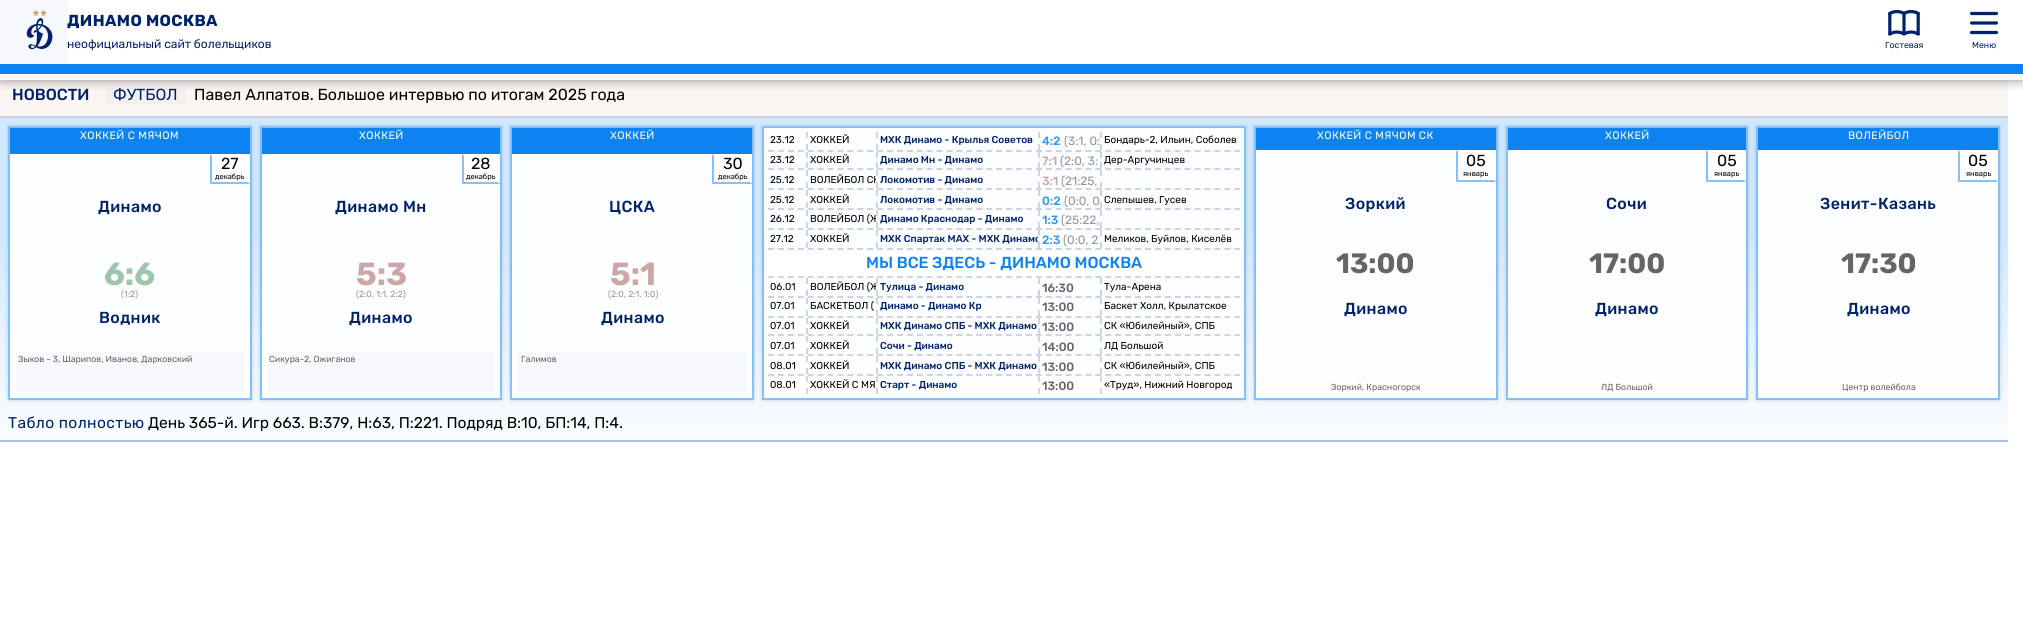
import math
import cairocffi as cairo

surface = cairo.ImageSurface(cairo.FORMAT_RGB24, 2023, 637)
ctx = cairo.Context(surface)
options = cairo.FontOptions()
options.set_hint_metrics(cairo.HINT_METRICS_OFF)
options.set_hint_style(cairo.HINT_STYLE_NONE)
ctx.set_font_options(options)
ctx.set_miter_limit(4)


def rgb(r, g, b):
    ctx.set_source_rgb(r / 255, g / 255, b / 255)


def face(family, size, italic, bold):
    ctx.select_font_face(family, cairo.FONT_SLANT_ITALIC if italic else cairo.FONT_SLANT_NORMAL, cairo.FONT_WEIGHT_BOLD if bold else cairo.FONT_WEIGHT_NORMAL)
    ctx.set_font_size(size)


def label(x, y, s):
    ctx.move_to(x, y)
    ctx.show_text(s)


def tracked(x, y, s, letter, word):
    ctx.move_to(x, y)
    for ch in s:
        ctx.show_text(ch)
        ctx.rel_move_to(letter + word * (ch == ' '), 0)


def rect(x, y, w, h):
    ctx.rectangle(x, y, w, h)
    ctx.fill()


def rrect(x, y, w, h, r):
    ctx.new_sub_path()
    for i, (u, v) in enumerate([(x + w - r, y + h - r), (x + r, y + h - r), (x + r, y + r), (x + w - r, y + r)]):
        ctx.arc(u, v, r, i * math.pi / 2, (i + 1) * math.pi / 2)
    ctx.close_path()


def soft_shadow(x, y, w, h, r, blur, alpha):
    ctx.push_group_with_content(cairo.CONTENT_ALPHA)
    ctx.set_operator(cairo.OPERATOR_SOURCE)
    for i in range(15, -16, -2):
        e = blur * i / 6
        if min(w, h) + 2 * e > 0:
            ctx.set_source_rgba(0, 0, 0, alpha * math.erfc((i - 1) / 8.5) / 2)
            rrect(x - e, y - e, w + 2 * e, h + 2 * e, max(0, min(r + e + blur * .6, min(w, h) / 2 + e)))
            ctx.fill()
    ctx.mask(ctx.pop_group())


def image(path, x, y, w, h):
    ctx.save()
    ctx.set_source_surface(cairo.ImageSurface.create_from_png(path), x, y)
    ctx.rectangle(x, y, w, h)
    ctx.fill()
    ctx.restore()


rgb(255, 255, 255)
ctx.paint()
rgb(250, 247, 243)
rect(0, 76, 2008, 40)
rgb(243, 241, 239)
rect(106, 88, 80, 16)
ctx.save()
ctx.rectangle(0, 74, 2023, 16)
ctx.clip()
rgb(0, 0, 0)
soft_shadow(0, 0, 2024, 74, 0, 8, 1)
ctx.restore()
rgb(13, 131, 242)
rect(0, 64, 2023, 10)
rgb(247, 248, 251)
rect(0, 0, 68, 64)
ctx.rectangle(-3, -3, 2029, 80)
ctx.set_source_rgba(1, 1, 1, 0.92)
ctx.set_line_width(6)
ctx.stroke()
image('image0.png', 26, 9, 27, 41)
face('Rubik', 15.95, 0, 1)
rgb(0, 34, 107)
tracked(67, 26, 'ДИНАМО МОСКВА', 0.4, 0)
face('Rubik', 12, 0, 0)
label(67, 48, 'неофициальный сайт болельщиков')
image('image1.png', 1888, 10, 32, 26)
ctx.save()
ctx.rectangle(1868, 42, 72, 18)
ctx.clip()
face('Rubik', 8.75, 0, 0)
label(1885, 48, 'Гостевая')
ctx.restore()
ctx.new_path()
ctx.move_to(1971.5, 13.5)
ctx.line_to(1996.5, 13.5)
ctx.move_to(1971.5, 23)
ctx.line_to(1996.5, 23)
ctx.move_to(1971.5, 32.5)
ctx.line_to(1996.5, 32.5)
ctx.set_line_width(3.2)
ctx.set_line_cap(cairo.LINE_CAP_ROUND)
ctx.set_line_join(cairo.LINE_JOIN_ROUND)
ctx.stroke()
face('Rubik', 8.75, 0, 0)
label(1972, 48, 'Меню')
face('Rubik Medium', 15.95, 0, 0)
label(12, 100, 'НОВОСТИ')
face('Rubik', 15.95, 0, 0)
label(113, 100, 'ФУТБОЛ')
rgb(0, 0, 0)
label(194, 100, 'Павел Алпатов. Большое интервью по итогам 2025 года')
gradient = cairo.LinearGradient(1004, 118, 1004, 440)
gradient.add_color_stop_rgba(0, 0.824, 0.91, 0.992, 1)
gradient.add_color_stop_rgba(0.35, 0.824, 0.91, 0.992, 1)
gradient.add_color_stop_rgba(1, 0.98, 0.992, 1, 1)
ctx.set_source(gradient)
rect(0, 118, 2008, 322)
gradient = cairo.LinearGradient(1004, 118, 1004, 440)
gradient.add_color_stop_rgba(0, 0.984, 0.992, 1, 1)
gradient.add_color_stop_rgba(0.35, 0.984, 0.992, 1, 1)
gradient.add_color_stop_rgba(1, 1, 1, 1, 1)
ctx.set_source(gradient)
rect(1756, 126, 244, 274)
rect(1506, 126, 242, 274)
rect(1254, 126, 244, 274)
rect(510, 126, 244, 274)
rect(260, 126, 242, 274)
rect(8, 126, 244, 274)
rect(762, 126, 484, 274)
rgb(202, 211, 227)
rect(0, 116, 2008, 2)
rgb(169, 194, 225)
rect(0, 440, 2008, 2)
ctx.save()
ctx.set_fill_rule(cairo.FILL_RULE_EVEN_ODD)
ctx.new_path()
ctx.move_to(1, 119)
ctx.line_to(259, 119)
ctx.line_to(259, 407)
ctx.line_to(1, 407)
ctx.close_path()
ctx.move_to(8, 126)
ctx.line_to(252, 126)
ctx.line_to(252, 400)
ctx.line_to(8, 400)
ctx.close_path()
ctx.clip()
rgb(0, 34, 107)
soft_shadow(8, 126, 244, 274, 0, 2, 0.19)
ctx.restore()
ctx.rectangle(9, 127, 242, 272)
ctx.set_source_rgba(0.051, 0.514, 0.949, 0.5)
ctx.set_line_width(2)
ctx.set_line_cap(cairo.LINE_CAP_BUTT)
ctx.set_line_join(cairo.LINE_JOIN_MITER)
ctx.stroke()
rgb(13, 131, 242)
rect(10, 128, 240, 26)
face('Rubik', 10.75, 0, 0)
rgb(255, 255, 255)
tracked(80, 139, 'ХОККЕЙ С МЯЧОМ', 0.4, 0)
rect(210, 154, 40, 30)
rgb(134, 193, 249)
ctx.new_path()
ctx.move_to(250, 184)
ctx.line_to(210, 184)
ctx.line_to(212, 182)
ctx.line_to(248, 182)
ctx.close_path()
ctx.fill()
ctx.set_source_rgba(0.051, 0.514, 0.949, 0.5)
ctx.new_path()
ctx.move_to(210, 184)
ctx.line_to(210, 154)
ctx.line_to(212, 156)
ctx.line_to(212, 182)
ctx.close_path()
ctx.fill()
face('Rubik', 15.95, 0, 0)
rgb(0, 0, 0)
label(221, 169, '27')
face('Rubik', 7.5, 0, 0)
label(215, 179, 'декабрь')
face('Rubik Medium', 15.95, 0, 0)
rgb(0, 34, 107)
tracked(98, 212, 'Динамо', 0.4, 0)
face('Rubik', 32, 0, 1)
rgb(161, 196, 173)
label(104, 285, '6:6')
face('Rubik', 8.75, 0, 0)
rgb(150, 150, 150)
label(121, 297, '(1:2)')
face('Rubik Medium', 15.95, 0, 0)
rgb(0, 34, 107)
tracked(99, 323, 'Водник', 0.4, 0)
rgb(246, 248, 251)
rect(16, 352, 228, 40)
face('Rubik', 8.75, 0, 0)
rgb(101, 101, 102)
label(18, 362, 'Зыков - 3, Шарипов, Иванов, Дарковский')
ctx.save()
ctx.set_fill_rule(cairo.FILL_RULE_EVEN_ODD)
ctx.new_path()
ctx.move_to(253, 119)
ctx.line_to(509, 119)
ctx.line_to(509, 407)
ctx.line_to(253, 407)
ctx.close_path()
ctx.move_to(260, 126)
ctx.line_to(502, 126)
ctx.line_to(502, 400)
ctx.line_to(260, 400)
ctx.close_path()
ctx.clip()
rgb(0, 34, 107)
soft_shadow(260, 126, 242, 274, 0, 2, 0.19)
ctx.restore()
ctx.rectangle(261, 127, 240, 272)
ctx.set_source_rgba(0.051, 0.514, 0.949, 0.5)
ctx.stroke()
rgb(13, 131, 242)
rect(262, 128, 238, 26)
face('Rubik', 10.75, 0, 0)
rgb(255, 255, 255)
tracked(359, 139, 'ХОККЕЙ', 0.4, 0)
rect(462, 154, 38, 30)
rgb(134, 193, 249)
ctx.new_path()
ctx.move_to(500, 184)
ctx.line_to(462, 184)
ctx.line_to(464, 182)
ctx.line_to(498, 182)
ctx.close_path()
ctx.fill()
ctx.set_source_rgba(0.051, 0.514, 0.949, 0.5)
ctx.new_path()
ctx.move_to(462, 184)
ctx.line_to(462, 154)
ctx.line_to(464, 156)
ctx.line_to(464, 182)
ctx.close_path()
ctx.fill()
face('Rubik', 15.95, 0, 0)
rgb(0, 0, 0)
label(471, 169, '28')
face('Rubik', 7.5, 0, 0)
label(466, 179, 'декабрь')
face('Rubik Medium', 15.95, 0, 0)
rgb(0, 34, 107)
tracked(335, 212, 'Динамо Мн', 0.4, 0)
face('Rubik', 32, 0, 1)
rgb(202, 168, 167)
label(356, 285, '5:3')
face('Rubik', 8.75, 0, 0)
rgb(150, 150, 150)
label(356, 297, '(2:0, 1:1, 2:2)')
face('Rubik Medium', 15.95, 0, 0)
rgb(0, 34, 107)
tracked(349, 323, 'Динамо', 0.4, 0)
rgb(246, 248, 251)
rect(268, 352, 226, 40)
face('Rubik', 8.75, 0, 0)
rgb(101, 101, 102)
label(269, 362, 'Сикура-2, Ожиганов')
ctx.save()
ctx.set_fill_rule(cairo.FILL_RULE_EVEN_ODD)
ctx.new_path()
ctx.move_to(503, 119)
ctx.line_to(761, 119)
ctx.line_to(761, 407)
ctx.line_to(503, 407)
ctx.close_path()
ctx.move_to(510, 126)
ctx.line_to(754, 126)
ctx.line_to(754, 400)
ctx.line_to(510, 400)
ctx.close_path()
ctx.clip()
rgb(0, 34, 107)
soft_shadow(510, 126, 244, 274, 0, 2, 0.19)
ctx.restore()
ctx.rectangle(511, 127, 242, 272)
ctx.set_source_rgba(0.051, 0.514, 0.949, 0.5)
ctx.stroke()
rgb(13, 131, 242)
rect(512, 128, 240, 26)
face('Rubik', 10.75, 0, 0)
rgb(255, 255, 255)
tracked(610, 139, 'ХОККЕЙ', 0.4, 0)
rect(712, 154, 40, 30)
rgb(134, 193, 249)
ctx.new_path()
ctx.move_to(752, 184)
ctx.line_to(712, 184)
ctx.line_to(714, 182)
ctx.line_to(750, 182)
ctx.close_path()
ctx.fill()
ctx.set_source_rgba(0.051, 0.514, 0.949, 0.5)
ctx.new_path()
ctx.move_to(712, 184)
ctx.line_to(712, 154)
ctx.line_to(714, 156)
ctx.line_to(714, 182)
ctx.close_path()
ctx.fill()
face('Rubik', 15.95, 0, 0)
rgb(0, 0, 0)
label(723, 169, '30')
face('Rubik', 7.5, 0, 0)
label(718, 179, 'декабрь')
face('Rubik Medium', 15.95, 0, 0)
rgb(0, 34, 107)
tracked(609, 212, 'ЦСКА', 0.4, 0)
face('Rubik', 32, 0, 1)
rgb(202, 168, 167)
label(610, 285, '5:1')
face('Rubik', 8.75, 0, 0)
rgb(150, 150, 150)
label(608, 297, '(2:0, 2:1, 1:0)')
face('Rubik Medium', 15.95, 0, 0)
rgb(0, 34, 107)
tracked(601, 323, 'Динамо', 0.4, 0)
rgb(246, 248, 251)
rect(518, 352, 228, 40)
face('Rubik', 8.75, 0, 0)
rgb(101, 101, 102)
label(521, 362, 'Галимов')
ctx.save()
ctx.set_fill_rule(cairo.FILL_RULE_EVEN_ODD)
ctx.new_path()
ctx.move_to(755, 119)
ctx.line_to(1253, 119)
ctx.line_to(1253, 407)
ctx.line_to(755, 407)
ctx.close_path()
ctx.move_to(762, 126)
ctx.line_to(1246, 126)
ctx.line_to(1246, 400)
ctx.line_to(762, 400)
ctx.close_path()
ctx.clip()
rgb(0, 34, 107)
soft_shadow(762, 126, 484, 274, 0, 2, 0.19)
ctx.restore()
ctx.rectangle(763, 127, 482, 272)
ctx.set_source_rgba(0.051, 0.514, 0.949, 0.5)
ctx.stroke()
ctx.new_path()
ctx.move_to(768, 151)
ctx.line_to(1240, 151)
rgb(204, 212, 227)
ctx.set_dash([6, 3.92])
ctx.stroke()
ctx.new_path()
ctx.move_to(807, 132)
ctx.line_to(807, 138)
ctx.move_to(807, 144)
ctx.line_to(807, 150)
ctx.set_dash([])
ctx.stroke()
face('Rubik', 10, 0, 0)
rgb(0, 0, 0)
label(770, 143, '23.12')
ctx.new_path()
ctx.move_to(877, 132)
ctx.line_to(877, 138)
ctx.move_to(877, 144)
ctx.line_to(877, 150)
rgb(204, 212, 227)
ctx.stroke()
rgb(0, 0, 0)
label(810, 143, 'ХОККЕЙ')
ctx.new_path()
ctx.move_to(1039, 132)
ctx.line_to(1039, 138)
ctx.move_to(1039, 144)
ctx.line_to(1039, 150)
rgb(204, 212, 227)
ctx.stroke()
face('Rubik Medium', 10, 0, 0)
rgb(0, 34, 107)
label(880, 143, 'МХК Динамо - Крылья Советов')
ctx.new_path()
ctx.move_to(1101, 132)
ctx.line_to(1101, 138)
ctx.move_to(1101, 144)
ctx.line_to(1101, 150)
rgb(204, 212, 227)
ctx.stroke()
face('Rubik Medium', 12, 0, 0)
rgb(49, 150, 244)
label(1042, 145, '4:2')
face('Rubik', 12, 0, 0)
rgb(150, 150, 150)
label(1064, 145, '(3:1, 0:')
face('Rubik', 10, 0, 0)
rgb(0, 0, 0)
label(1104, 143, 'Бондарь-2, Ильин, Соболев')
ctx.new_path()
ctx.move_to(768, 169)
ctx.line_to(1240, 169)
rgb(204, 212, 227)
ctx.set_dash([6, 3.92])
ctx.stroke()
ctx.new_path()
ctx.move_to(807, 152)
ctx.line_to(807, 158)
ctx.move_to(807, 162)
ctx.line_to(807, 168)
ctx.set_dash([])
ctx.stroke()
rgb(0, 0, 0)
label(770, 163, '23.12')
ctx.new_path()
ctx.move_to(877, 152)
ctx.line_to(877, 158)
ctx.move_to(877, 162)
ctx.line_to(877, 168)
rgb(204, 212, 227)
ctx.stroke()
rgb(0, 0, 0)
label(810, 163, 'ХОККЕЙ')
ctx.new_path()
ctx.move_to(1039, 152)
ctx.line_to(1039, 158)
ctx.move_to(1039, 162)
ctx.line_to(1039, 168)
rgb(204, 212, 227)
ctx.stroke()
face('Rubik Medium', 10, 0, 0)
rgb(0, 34, 107)
label(880, 163, 'Динамо Мн - Динамо')
ctx.new_path()
ctx.move_to(1101, 152)
ctx.line_to(1101, 158)
ctx.move_to(1101, 162)
ctx.line_to(1101, 168)
rgb(204, 212, 227)
ctx.stroke()
face('Rubik Medium', 12, 0, 0)
rgb(202, 168, 167)
label(1042, 165, '7:1')
face('Rubik', 12, 0, 0)
rgb(150, 150, 150)
label(1060, 165, '(2:0, 3:')
face('Rubik', 10, 0, 0)
rgb(0, 0, 0)
label(1104, 163, 'Дер-Аргучинцев')
ctx.new_path()
ctx.move_to(768, 189)
ctx.line_to(1240, 189)
rgb(204, 212, 227)
ctx.set_dash([6, 3.92])
ctx.stroke()
ctx.new_path()
ctx.move_to(807, 170)
ctx.line_to(807, 176)
ctx.move_to(807, 182)
ctx.line_to(807, 188)
ctx.set_dash([])
ctx.stroke()
rgb(0, 0, 0)
label(770, 183, '25.12')
ctx.new_path()
ctx.move_to(877, 170)
ctx.line_to(877, 176)
ctx.move_to(877, 182)
ctx.line_to(877, 188)
rgb(204, 212, 227)
ctx.stroke()
ctx.save()
ctx.rectangle(808, 170, 68, 18)
ctx.clip()
rgb(0, 0, 0)
label(810, 183, 'ВОЛЕЙБОЛ СК')
ctx.restore()
ctx.new_path()
ctx.move_to(1039, 170)
ctx.line_to(1039, 176)
ctx.move_to(1039, 182)
ctx.line_to(1039, 188)
ctx.stroke()
face('Rubik Medium', 10, 0, 0)
rgb(0, 34, 107)
label(880, 183, 'Локомотив - Динамо')
ctx.new_path()
ctx.move_to(1101, 170)
ctx.line_to(1101, 176)
ctx.move_to(1101, 182)
ctx.line_to(1101, 188)
rgb(204, 212, 227)
ctx.stroke()
face('Rubik Medium', 12, 0, 0)
rgb(202, 168, 167)
label(1042, 185, '3:1')
face('Rubik', 12, 0, 0)
rgb(150, 150, 150)
label(1061, 185, '(21:25,')
ctx.new_path()
ctx.move_to(768, 209)
ctx.line_to(1240, 209)
rgb(204, 212, 227)
ctx.set_dash([6, 3.92])
ctx.stroke()
ctx.new_path()
ctx.move_to(807, 190)
ctx.line_to(807, 196)
ctx.move_to(807, 202)
ctx.line_to(807, 208)
ctx.set_dash([])
ctx.stroke()
face('Rubik', 10, 0, 0)
rgb(0, 0, 0)
label(770, 203, '25.12')
ctx.new_path()
ctx.move_to(877, 190)
ctx.line_to(877, 196)
ctx.move_to(877, 202)
ctx.line_to(877, 208)
rgb(204, 212, 227)
ctx.stroke()
rgb(0, 0, 0)
label(810, 203, 'ХОККЕЙ')
ctx.new_path()
ctx.move_to(1039, 190)
ctx.line_to(1039, 196)
ctx.move_to(1039, 202)
ctx.line_to(1039, 208)
rgb(204, 212, 227)
ctx.stroke()
face('Rubik Medium', 10, 0, 0)
rgb(0, 34, 107)
label(880, 203, 'Локомотив - Динамо')
ctx.new_path()
ctx.move_to(1101, 190)
ctx.line_to(1101, 196)
ctx.move_to(1101, 202)
ctx.line_to(1101, 208)
rgb(204, 212, 227)
ctx.stroke()
face('Rubik Medium', 12, 0, 0)
rgb(49, 150, 244)
label(1042, 205, '0:2')
face('Rubik', 12, 0, 0)
rgb(150, 150, 150)
label(1064, 205, '(0:0, 0')
face('Rubik', 10, 0, 0)
rgb(0, 0, 0)
label(1104, 203, 'Слепышев, Гусев')
ctx.new_path()
ctx.move_to(768, 229)
ctx.line_to(1240, 229)
rgb(204, 212, 227)
ctx.set_dash([6, 3.92])
ctx.stroke()
ctx.new_path()
ctx.move_to(807, 210)
ctx.line_to(807, 216)
ctx.move_to(807, 222)
ctx.line_to(807, 228)
ctx.set_dash([])
ctx.stroke()
rgb(0, 0, 0)
label(770, 222, '26.12')
ctx.new_path()
ctx.move_to(877, 210)
ctx.line_to(877, 216)
ctx.move_to(877, 222)
ctx.line_to(877, 228)
rgb(204, 212, 227)
ctx.stroke()
ctx.save()
ctx.rectangle(808, 210, 68, 18)
ctx.clip()
rgb(0, 0, 0)
label(810, 222, 'ВОЛЕЙБОЛ (Ж')
ctx.restore()
ctx.new_path()
ctx.move_to(1039, 210)
ctx.line_to(1039, 216)
ctx.move_to(1039, 222)
ctx.line_to(1039, 228)
ctx.stroke()
face('Rubik Medium', 10, 0, 0)
rgb(0, 34, 107)
label(880, 222, 'Динамо Краснодар - Динамо')
ctx.new_path()
ctx.move_to(1101, 210)
ctx.line_to(1101, 216)
ctx.move_to(1101, 222)
ctx.line_to(1101, 228)
rgb(204, 212, 227)
ctx.stroke()
face('Rubik Medium', 12, 0, 0)
rgb(49, 150, 244)
label(1042, 224, '1:3')
face('Rubik', 12, 0, 0)
rgb(150, 150, 150)
label(1061, 224, '(25:22,')
ctx.new_path()
ctx.move_to(768, 249)
ctx.line_to(1240, 249)
rgb(204, 212, 227)
ctx.set_dash([6, 3.92])
ctx.stroke()
ctx.new_path()
ctx.move_to(807, 230)
ctx.line_to(807, 236)
ctx.move_to(807, 242)
ctx.line_to(807, 248)
ctx.set_dash([])
ctx.stroke()
face('Rubik', 10, 0, 0)
rgb(0, 0, 0)
label(770, 242, '27.12')
ctx.new_path()
ctx.move_to(877, 230)
ctx.line_to(877, 236)
ctx.move_to(877, 242)
ctx.line_to(877, 248)
rgb(204, 212, 227)
ctx.stroke()
rgb(0, 0, 0)
label(810, 242, 'ХОККЕЙ')
ctx.new_path()
ctx.move_to(1039, 230)
ctx.line_to(1039, 236)
ctx.move_to(1039, 242)
ctx.line_to(1039, 248)
rgb(204, 212, 227)
ctx.stroke()
ctx.save()
ctx.rectangle(878, 230, 160, 18)
ctx.clip()
face('Rubik Medium', 10, 0, 0)
rgb(0, 34, 107)
label(880, 242, 'МХК Спартак MAX - МХК Динамо')
ctx.restore()
ctx.new_path()
ctx.move_to(1101, 230)
ctx.line_to(1101, 236)
ctx.move_to(1101, 242)
ctx.line_to(1101, 248)
ctx.stroke()
face('Rubik Medium', 12, 0, 0)
rgb(49, 150, 244)
label(1042, 244, '2:3')
face('Rubik', 12, 0, 0)
rgb(150, 150, 150)
label(1063, 244, '(0:0, 2')
face('Rubik', 10, 0, 0)
rgb(0, 0, 0)
label(1104, 242, 'Меликов, Буйлов, Киселёв')
rgb(255, 255, 255)
rect(768, 250, 472, 28)
ctx.new_path()
ctx.move_to(768, 277)
ctx.line_to(1240, 277)
rgb(207, 213, 227)
ctx.set_dash([6, 3.92])
ctx.stroke()
face('Rubik Medium', 15.95, 0, 0)
rgb(13, 131, 242)
label(866, 268, 'МЫ ВСЕ ЗДЕСЬ - ДИНАМО МОСКВА')
ctx.new_path()
ctx.move_to(768, 297)
ctx.line_to(1240, 297)
rgb(204, 212, 227)
ctx.stroke()
ctx.new_path()
ctx.move_to(807, 278)
ctx.line_to(807, 284)
ctx.move_to(807, 290)
ctx.line_to(807, 296)
ctx.set_dash([])
ctx.stroke()
face('Rubik', 10, 0, 0)
rgb(0, 0, 0)
label(770, 290, '06.01')
ctx.new_path()
ctx.move_to(877, 278)
ctx.line_to(877, 284)
ctx.move_to(877, 290)
ctx.line_to(877, 296)
rgb(204, 212, 227)
ctx.stroke()
ctx.save()
ctx.rectangle(808, 278, 68, 18)
ctx.clip()
rgb(0, 0, 0)
label(810, 290, 'ВОЛЕЙБОЛ (Ж')
ctx.restore()
ctx.new_path()
ctx.move_to(1039, 278)
ctx.line_to(1039, 284)
ctx.move_to(1039, 290)
ctx.line_to(1039, 296)
ctx.stroke()
face('Rubik Medium', 10, 0, 0)
rgb(0, 34, 107)
label(880, 290, 'Тулица - Динамо')
ctx.new_path()
ctx.move_to(1101, 278)
ctx.line_to(1101, 284)
ctx.move_to(1101, 290)
ctx.line_to(1101, 296)
rgb(204, 212, 227)
ctx.stroke()
face('Rubik Medium', 12, 0, 0)
rgb(101, 101, 102)
label(1042, 292, '16:30')
face('Rubik', 10, 0, 0)
rgb(0, 0, 0)
label(1104, 290, 'Тула-Арена')
ctx.new_path()
ctx.move_to(768, 317)
ctx.line_to(1240, 317)
rgb(205, 212, 227)
ctx.set_dash([6, 3.92])
ctx.stroke()
ctx.new_path()
ctx.move_to(807, 298)
ctx.line_to(807, 304)
ctx.move_to(807, 310)
ctx.line_to(807, 316)
ctx.set_dash([])
ctx.stroke()
rgb(0, 0, 0)
label(770, 309, '07.01')
ctx.new_path()
ctx.move_to(877, 298)
ctx.line_to(877, 304)
ctx.move_to(877, 310)
ctx.line_to(877, 316)
rgb(205, 212, 227)
ctx.stroke()
rgb(0, 0, 0)
label(810, 309, 'БАСКЕТБОЛ (')
ctx.new_path()
ctx.move_to(1039, 298)
ctx.line_to(1039, 304)
ctx.move_to(1039, 310)
ctx.line_to(1039, 316)
rgb(205, 212, 227)
ctx.stroke()
face('Rubik Medium', 10, 0, 0)
rgb(0, 34, 107)
label(880, 309, 'Динамо - Динамо Кр')
ctx.new_path()
ctx.move_to(1101, 298)
ctx.line_to(1101, 304)
ctx.move_to(1101, 310)
ctx.line_to(1101, 316)
rgb(205, 212, 227)
ctx.stroke()
face('Rubik Medium', 12, 0, 0)
rgb(101, 101, 102)
label(1042, 311, '13:00')
face('Rubik', 10, 0, 0)
rgb(0, 0, 0)
label(1104, 309, 'Баскет Холл, Крылатское')
ctx.new_path()
ctx.move_to(768, 335)
ctx.line_to(1240, 335)
rgb(205, 212, 227)
ctx.set_dash([6, 3.92])
ctx.stroke()
ctx.new_path()
ctx.move_to(807, 318)
ctx.line_to(807, 324)
ctx.move_to(807, 328)
ctx.line_to(807, 334)
ctx.set_dash([])
ctx.stroke()
rgb(0, 0, 0)
label(770, 329, '07.01')
ctx.new_path()
ctx.move_to(877, 318)
ctx.line_to(877, 324)
ctx.move_to(877, 328)
ctx.line_to(877, 334)
rgb(205, 212, 227)
ctx.stroke()
rgb(0, 0, 0)
label(810, 329, 'ХОККЕЙ')
ctx.new_path()
ctx.move_to(1039, 318)
ctx.line_to(1039, 324)
ctx.move_to(1039, 328)
ctx.line_to(1039, 334)
rgb(205, 212, 227)
ctx.stroke()
face('Rubik Medium', 10, 0, 0)
rgb(0, 34, 107)
label(880, 329, 'МХК Динамо СПБ - МХК Динамо')
ctx.new_path()
ctx.move_to(1101, 318)
ctx.line_to(1101, 324)
ctx.move_to(1101, 328)
ctx.line_to(1101, 334)
rgb(205, 212, 227)
ctx.stroke()
face('Rubik Medium', 12, 0, 0)
rgb(101, 101, 102)
label(1042, 331, '13:00')
face('Rubik', 10, 0, 0)
rgb(0, 0, 0)
label(1104, 329, 'СК «Юбилейный», СПБ')
ctx.new_path()
ctx.move_to(768, 355)
ctx.line_to(1240, 355)
rgb(205, 212, 227)
ctx.set_dash([6, 3.92])
ctx.stroke()
ctx.new_path()
ctx.move_to(807, 336)
ctx.line_to(807, 342)
ctx.move_to(807, 348)
ctx.line_to(807, 354)
ctx.set_dash([])
ctx.stroke()
rgb(0, 0, 0)
label(770, 349, '07.01')
ctx.new_path()
ctx.move_to(877, 336)
ctx.line_to(877, 342)
ctx.move_to(877, 348)
ctx.line_to(877, 354)
rgb(205, 212, 227)
ctx.stroke()
rgb(0, 0, 0)
label(810, 349, 'ХОККЕЙ')
ctx.new_path()
ctx.move_to(1039, 336)
ctx.line_to(1039, 342)
ctx.move_to(1039, 348)
ctx.line_to(1039, 354)
rgb(205, 212, 227)
ctx.stroke()
face('Rubik Medium', 10, 0, 0)
rgb(0, 34, 107)
label(880, 349, 'Сочи - Динамо')
ctx.new_path()
ctx.move_to(1101, 336)
ctx.line_to(1101, 342)
ctx.move_to(1101, 348)
ctx.line_to(1101, 354)
rgb(205, 212, 227)
ctx.stroke()
face('Rubik Medium', 12, 0, 0)
rgb(101, 101, 102)
label(1042, 351, '14:00')
face('Rubik', 10, 0, 0)
rgb(0, 0, 0)
label(1104, 349, 'ЛД Большой')
ctx.new_path()
ctx.move_to(768, 375)
ctx.line_to(1240, 375)
rgb(205, 212, 227)
ctx.set_dash([6, 3.92])
ctx.stroke()
ctx.new_path()
ctx.move_to(807, 356)
ctx.line_to(807, 362)
ctx.move_to(807, 368)
ctx.line_to(807, 374)
ctx.set_dash([])
ctx.stroke()
rgb(0, 0, 0)
label(770, 369, '08.01')
ctx.new_path()
ctx.move_to(877, 356)
ctx.line_to(877, 362)
ctx.move_to(877, 368)
ctx.line_to(877, 374)
rgb(205, 212, 227)
ctx.stroke()
rgb(0, 0, 0)
label(810, 369, 'ХОККЕЙ')
ctx.new_path()
ctx.move_to(1039, 356)
ctx.line_to(1039, 362)
ctx.move_to(1039, 368)
ctx.line_to(1039, 374)
rgb(205, 212, 227)
ctx.stroke()
face('Rubik Medium', 10, 0, 0)
rgb(0, 34, 107)
label(880, 369, 'МХК Динамо СПБ - МХК Динамо')
ctx.new_path()
ctx.move_to(1101, 356)
ctx.line_to(1101, 362)
ctx.move_to(1101, 368)
ctx.line_to(1101, 374)
rgb(205, 212, 227)
ctx.stroke()
face('Rubik Medium', 12, 0, 0)
rgb(101, 101, 102)
label(1042, 371, '13:00')
face('Rubik', 10, 0, 0)
rgb(0, 0, 0)
label(1104, 369, 'СК «Юбилейный», СПБ')
ctx.new_path()
ctx.move_to(807, 376)
ctx.line_to(807, 382)
ctx.move_to(807, 388)
ctx.line_to(807, 394)
rgb(206, 213, 227)
ctx.stroke()
rgb(0, 0, 0)
label(770, 388, '08.01')
ctx.new_path()
ctx.move_to(877, 376)
ctx.line_to(877, 382)
ctx.move_to(877, 388)
ctx.line_to(877, 394)
rgb(206, 213, 227)
ctx.stroke()
rgb(0, 0, 0)
label(810, 388, 'ХОККЕЙ С МЯ')
ctx.new_path()
ctx.move_to(1039, 376)
ctx.line_to(1039, 382)
ctx.move_to(1039, 388)
ctx.line_to(1039, 394)
rgb(206, 213, 227)
ctx.stroke()
face('Rubik Medium', 10, 0, 0)
rgb(0, 34, 107)
label(880, 388, 'Старт - Динамо')
ctx.new_path()
ctx.move_to(1101, 376)
ctx.line_to(1101, 382)
ctx.move_to(1101, 388)
ctx.line_to(1101, 394)
rgb(206, 213, 227)
ctx.stroke()
face('Rubik Medium', 12, 0, 0)
rgb(101, 101, 102)
label(1042, 390, '13:00')
face('Rubik', 10, 0, 0)
rgb(0, 0, 0)
label(1104, 388, '«Труд», Нижний Новгород')
ctx.save()
ctx.set_fill_rule(cairo.FILL_RULE_EVEN_ODD)
ctx.new_path()
ctx.move_to(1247, 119)
ctx.line_to(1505, 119)
ctx.line_to(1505, 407)
ctx.line_to(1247, 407)
ctx.close_path()
ctx.move_to(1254, 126)
ctx.line_to(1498, 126)
ctx.line_to(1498, 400)
ctx.line_to(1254, 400)
ctx.close_path()
ctx.clip()
rgb(0, 34, 107)
soft_shadow(1254, 126, 244, 274, 0, 2, 0.19)
ctx.restore()
ctx.rectangle(1255, 127, 242, 272)
ctx.set_source_rgba(0.051, 0.514, 0.949, 0.5)
ctx.stroke()
rgb(13, 131, 242)
rect(1256, 128, 240, 22)
face('Rubik', 10.75, 0, 0)
rgb(255, 255, 255)
tracked(1317, 139, 'ХОККЕЙ С МЯЧОМ СК', 0.4, 0)
rect(1456, 150, 40, 32)
rgb(134, 193, 249)
ctx.new_path()
ctx.move_to(1496, 182)
ctx.line_to(1456, 182)
ctx.line_to(1458, 180)
ctx.line_to(1494, 180)
ctx.close_path()
ctx.fill()
ctx.set_source_rgba(0.051, 0.514, 0.949, 0.5)
ctx.new_path()
ctx.move_to(1456, 182)
ctx.line_to(1456, 150)
ctx.line_to(1458, 152)
ctx.line_to(1458, 180)
ctx.close_path()
ctx.fill()
face('Rubik', 15.95, 0, 0)
rgb(0, 0, 0)
label(1466, 166, '05')
face('Rubik', 7.5, 0, 0)
label(1463, 176, 'январь')
face('Rubik Medium', 15.95, 0, 0)
rgb(0, 34, 107)
tracked(1345, 209, 'Зоркий', 0.4, 0)
face('Rubik', 28, 0, 1)
rgb(101, 101, 102)
label(1336, 273, '13:00')
face('Rubik Medium', 15.95, 0, 0)
rgb(0, 34, 107)
tracked(1344, 314, 'Динамо', 0.4, 0)
face('Rubik', 8.75, 0, 0)
rgb(101, 101, 102)
label(1331, 390, 'Зоркий, Красногорск')
ctx.save()
ctx.set_fill_rule(cairo.FILL_RULE_EVEN_ODD)
ctx.new_path()
ctx.move_to(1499, 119)
ctx.line_to(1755, 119)
ctx.line_to(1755, 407)
ctx.line_to(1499, 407)
ctx.close_path()
ctx.move_to(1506, 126)
ctx.line_to(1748, 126)
ctx.line_to(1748, 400)
ctx.line_to(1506, 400)
ctx.close_path()
ctx.clip()
rgb(0, 34, 107)
soft_shadow(1506, 126, 242, 274, 0, 2, 0.19)
ctx.restore()
ctx.rectangle(1507, 127, 240, 272)
ctx.set_source_rgba(0.051, 0.514, 0.949, 0.5)
ctx.stroke()
rgb(13, 131, 242)
rect(1508, 128, 238, 22)
face('Rubik', 10.75, 0, 0)
rgb(255, 255, 255)
tracked(1605, 139, 'ХОККЕЙ', 0.4, 0)
rect(1706, 150, 40, 32)
rgb(134, 193, 249)
ctx.new_path()
ctx.move_to(1746, 182)
ctx.line_to(1706, 182)
ctx.line_to(1708, 180)
ctx.line_to(1744, 180)
ctx.close_path()
ctx.fill()
ctx.set_source_rgba(0.051, 0.514, 0.949, 0.5)
ctx.new_path()
ctx.move_to(1706, 182)
ctx.line_to(1706, 150)
ctx.line_to(1708, 152)
ctx.line_to(1708, 180)
ctx.close_path()
ctx.fill()
face('Rubik', 15.95, 0, 0)
rgb(0, 0, 0)
label(1717, 166, '05')
face('Rubik', 7.5, 0, 0)
label(1714, 176, 'январь')
face('Rubik Medium', 15.95, 0, 0)
rgb(0, 34, 107)
tracked(1606, 209, 'Сочи', 0.4, 0)
face('Rubik', 28, 0, 1)
rgb(101, 101, 102)
label(1589, 273, '17:00')
face('Rubik Medium', 15.95, 0, 0)
rgb(0, 34, 107)
tracked(1595, 314, 'Динамо', 0.4, 0)
face('Rubik', 8.75, 0, 0)
rgb(101, 101, 102)
label(1601, 390, 'ЛД Большой')
ctx.save()
ctx.set_fill_rule(cairo.FILL_RULE_EVEN_ODD)
ctx.new_path()
ctx.move_to(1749, 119)
ctx.line_to(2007, 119)
ctx.line_to(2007, 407)
ctx.line_to(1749, 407)
ctx.close_path()
ctx.move_to(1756, 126)
ctx.line_to(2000, 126)
ctx.line_to(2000, 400)
ctx.line_to(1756, 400)
ctx.close_path()
ctx.clip()
rgb(0, 34, 107)
soft_shadow(1756, 126, 244, 274, 0, 2, 0.19)
ctx.restore()
ctx.rectangle(1757, 127, 242, 272)
ctx.set_source_rgba(0.051, 0.514, 0.949, 0.5)
ctx.stroke()
rgb(13, 131, 242)
rect(1758, 128, 240, 22)
face('Rubik', 10.75, 0, 0)
rgb(255, 255, 255)
tracked(1848, 139, 'ВОЛЕЙБОЛ', 0.4, 0)
rect(1958, 150, 40, 32)
rgb(134, 193, 249)
ctx.new_path()
ctx.move_to(1998, 182)
ctx.line_to(1958, 182)
ctx.line_to(1960, 180)
ctx.line_to(1996, 180)
ctx.close_path()
ctx.fill()
ctx.set_source_rgba(0.051, 0.514, 0.949, 0.5)
ctx.new_path()
ctx.move_to(1958, 182)
ctx.line_to(1958, 150)
ctx.line_to(1960, 152)
ctx.line_to(1960, 180)
ctx.close_path()
ctx.fill()
face('Rubik', 15.95, 0, 0)
rgb(0, 0, 0)
label(1968, 166, '05')
face('Rubik', 7.5, 0, 0)
label(1966, 176, 'январь')
face('Rubik Medium', 15.95, 0, 0)
rgb(0, 34, 107)
tracked(1820, 209, 'Зенит-Казань', 0.4, 0)
face('Rubik', 28, 0, 1)
rgb(101, 101, 102)
label(1841, 273, '17:30')
face('Rubik Medium', 15.95, 0, 0)
rgb(0, 34, 107)
tracked(1847, 314, 'Динамо', 0.4, 0)
face('Rubik', 8.75, 0, 0)
rgb(101, 101, 102)
label(1842, 390, 'Центр волейбола')
face('Rubik', 15.55, 0, 0)
rgb(0, 34, 107)
tracked(8, 428, 'Табло полностью', 0.4, 0)
rgb(0, 0, 0)
label(148, 428, 'День 365-й. Игр 663. В:379, Н:63, П:221. Подряд В:10, БП:14, П:4.')
surface.write_to_png('render.png')
